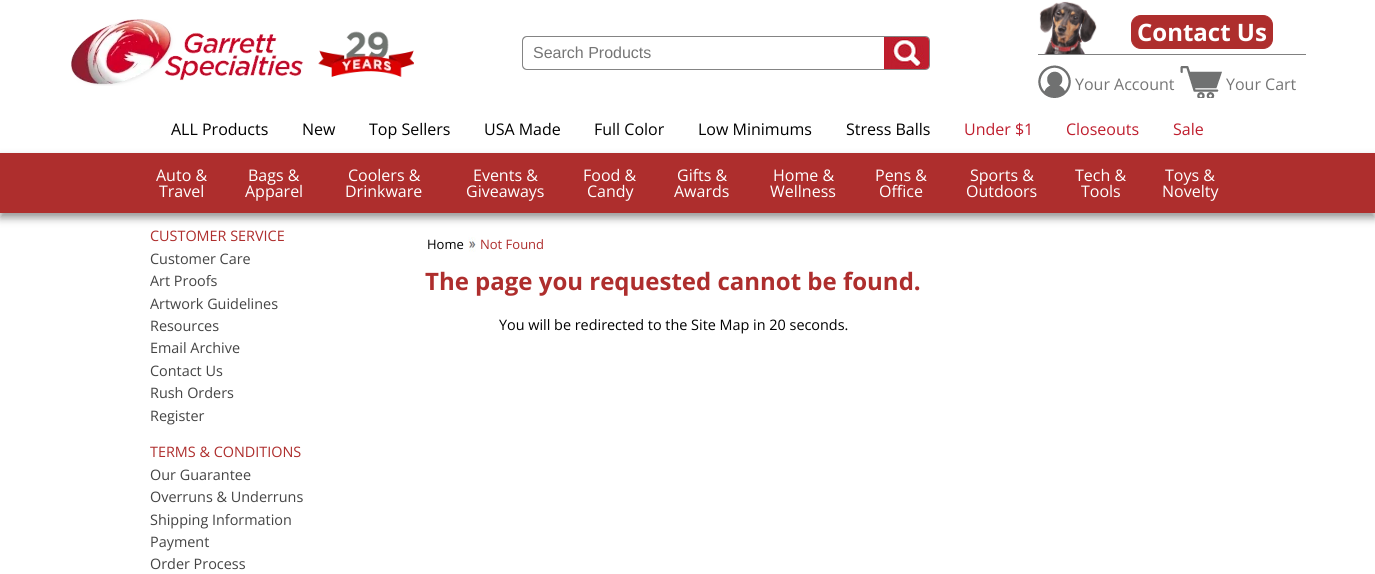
import math
import cairocffi as cairo

surface = cairo.ImageSurface(cairo.FORMAT_RGB24, 1375, 574)
ctx = cairo.Context(surface)
options = cairo.FontOptions()
options.set_hint_metrics(cairo.HINT_METRICS_OFF)
options.set_hint_style(cairo.HINT_STYLE_NONE)
ctx.set_font_options(options)
ctx.set_miter_limit(4)


def rgb(r, g, b):
    ctx.set_source_rgb(r / 255, g / 255, b / 255)


def face(family, size, italic, bold):
    ctx.select_font_face(family, cairo.FONT_SLANT_ITALIC if italic else cairo.FONT_SLANT_NORMAL, cairo.FONT_WEIGHT_BOLD if bold else cairo.FONT_WEIGHT_NORMAL)
    ctx.set_font_size(size)


def label(x, y, s):
    ctx.move_to(x, y)
    ctx.show_text(s)


def rect(x, y, w, h):
    ctx.rectangle(x, y, w, h)
    ctx.fill()


def rrect(x, y, w, h, r):
    ctx.new_sub_path()
    for i, (u, v) in enumerate([(x + w - r, y + h - r), (x + r, y + h - r), (x + r, y + r), (x + w - r, y + r)]):
        ctx.arc(u, v, r, i * math.pi / 2, (i + 1) * math.pi / 2)
    ctx.close_path()


def soft_shadow(x, y, w, h, r, blur, alpha):
    ctx.push_group_with_content(cairo.CONTENT_ALPHA)
    ctx.set_operator(cairo.OPERATOR_SOURCE)
    for i in range(15, -16, -2):
        e = blur * i / 6
        if min(w, h) + 2 * e > 0:
            ctx.set_source_rgba(0, 0, 0, alpha * math.erfc((i - 1) / 8.5) / 2)
            rrect(x - e, y - e, w + 2 * e, h + 2 * e, max(0, min(r + e + blur * .6, min(w, h) / 2 + e)))
            ctx.fill()
    ctx.mask(ctx.pop_group())


def image(path, x, y, w, h):
    ctx.save()
    ctx.set_source_surface(cairo.ImageSurface.create_from_png(path), x, y)
    ctx.rectangle(x, y, w, h)
    ctx.fill()
    ctx.restore()


rgb(255, 255, 255)
ctx.paint()
image('image0.png', 71, 19, 343, 67)
rgb(132, 132, 132)
ctx.set_fill_rule(cairo.FILL_RULE_EVEN_ODD)
ctx.new_path()
ctx.move_to(527, 36)
ctx.line_to(884, 36)
ctx.line_to(884, 70)
ctx.line_to(527, 70)
ctx.curve_to(524, 70, 522, 68, 522, 65)
ctx.line_to(522, 41)
ctx.curve_to(522, 38, 524, 36, 527, 36)
ctx.close_path()
ctx.move_to(527, 37)
ctx.line_to(884, 37)
ctx.line_to(884, 69)
ctx.line_to(527, 69)
ctx.curve_to(525, 69, 523, 67, 523, 65)
ctx.line_to(523, 41)
ctx.curve_to(523, 39, 525, 37, 527, 37)
ctx.close_path()
ctx.fill()
face('Liberation Sans', 16, 0, 0)
rgb(117, 117, 117)
label(533, 58, 'Search Products')
rgb(132, 132, 132)
ctx.new_path()
ctx.move_to(884, 36)
ctx.line_to(925, 36)
ctx.curve_to(928, 36, 930, 38, 930, 41)
ctx.line_to(930, 65)
ctx.curve_to(930, 68, 928, 70, 925, 70)
ctx.line_to(884, 70)
ctx.close_path()
ctx.move_to(884, 37)
ctx.line_to(925, 37)
ctx.curve_to(927, 37, 929, 39, 929, 41)
ctx.line_to(929, 65)
ctx.curve_to(929, 67, 927, 69, 925, 69)
ctx.line_to(884, 69)
ctx.close_path()
ctx.fill()
image('image1.png', 884, 37, 45, 32)
rgb(128, 128, 128)
rect(1038, 54, 268, 1)
image('image2.png', 1039, 1, 58, 53)
rgb(174, 46, 45)
rrect(1131.5, 15.5, 141, 33, 9.5)
ctx.fill_preserve()
ctx.set_line_width(1)
ctx.stroke()
face('Open Sans', 24, 0, 1)
rgb(255, 255, 255)
label(1137, 41, 'Contact Us')
image('image3.png', 1038, 65, 33, 33)
face('Open Sans', 16, 0, 0)
rgb(117, 117, 117)
label(1075, 90, 'Your Account')
image('image4.png', 1180, 66, 42, 32)
label(1226, 90, 'Your Cart')
rgb(0, 0, 0)
label(171, 135, 'ALL Products')
label(302, 135, 'New')
label(369, 135, 'Top Sellers')
label(484, 135, 'USA Made')
label(594, 135, 'Full Color')
label(698, 135, 'Low Minimums')
label(846, 135, 'Stress Balls')
rgb(191, 30, 46)
label(964, 135, 'Under $1')
label(1066, 135, 'Closeouts')
label(1173, 135, 'Sale')
rgb(152, 152, 152)
soft_shadow(0, 158, 1375, 60, 0, 4, 1)
rgb(174, 46, 45)
rect(0, 153, 1375, 60)
rgb(255, 255, 255)
label(156, 181, 'Auto &')
label(159, 197, 'Travel')
label(248, 181, 'Bags &')
label(245, 197, 'Apparel')
label(348, 181, 'Coolers &')
label(345, 197, 'Drinkware')
label(473, 181, 'Events &')
label(466, 197, 'Giveaways')
label(583, 181, 'Food &')
label(587, 197, 'Candy')
label(677, 181, 'Gifts &')
label(674, 197, 'Awards')
label(773, 181, 'Home &')
label(770, 197, 'Wellness')
label(875, 181, 'Pens &')
label(879, 197, 'Office')
label(970, 181, 'Sports &')
label(966, 197, 'Outdoors')
label(1075, 181, 'Tech &')
label(1081, 197, 'Tools')
label(1165, 181, 'Toys &')
label(1162, 197, 'Novelty')
face('Open Sans', 14.4, 0, 0)
rgb(174, 46, 45)
label(150, 241, 'CUSTOMER SERVICE')
rgb(68, 68, 68)
label(150, 264, 'Customer Care')
label(150, 286, 'Art Proofs')
label(150, 309, 'Artwork Guidelines')
label(150, 331, 'Resources')
label(150, 353, 'Email Archive')
label(150, 376, 'Contact Us')
label(150, 398, 'Rush Orders')
label(150, 421, 'Register')
rgb(174, 46, 45)
label(150, 457, 'TERMS & CONDITIONS')
rgb(68, 68, 68)
label(150, 480, 'Our Guarantee')
label(150, 502, 'Overruns & Underruns')
label(150, 525, 'Shipping Information')
label(150, 547, 'Payment')
label(150, 569, 'Order Process')
face('Open Sans', 13, 0, 0)
rgb(0, 0, 0)
label(427, 249, 'Home')
image('image5.png', 468, 237, 8, 15)
rgb(174, 46, 45)
label(480, 249, 'Not Found')
face('Open Sans', 24, 0, 1)
label(425, 290, 'The page you requested cannot be found.')
face('Open Sans', 14.4, 0, 0)
rgb(0, 0, 0)
label(499, 330, 'You will be redirected to the Site Map in 20 seconds.')
surface.write_to_png('render.png')
